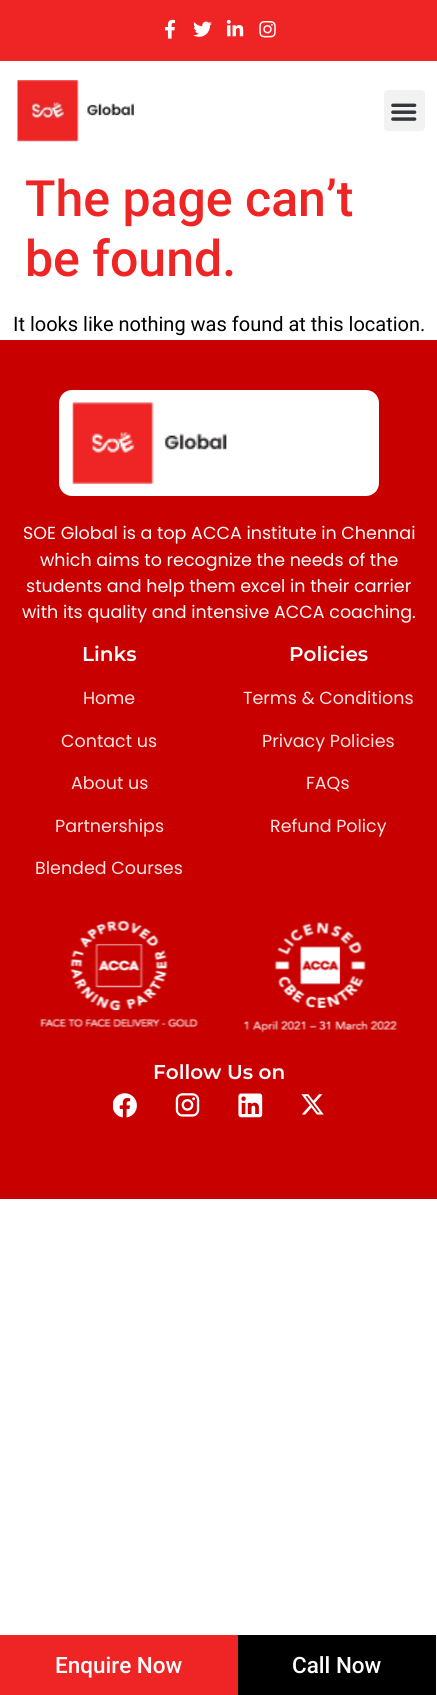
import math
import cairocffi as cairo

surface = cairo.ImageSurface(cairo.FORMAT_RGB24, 437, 1695)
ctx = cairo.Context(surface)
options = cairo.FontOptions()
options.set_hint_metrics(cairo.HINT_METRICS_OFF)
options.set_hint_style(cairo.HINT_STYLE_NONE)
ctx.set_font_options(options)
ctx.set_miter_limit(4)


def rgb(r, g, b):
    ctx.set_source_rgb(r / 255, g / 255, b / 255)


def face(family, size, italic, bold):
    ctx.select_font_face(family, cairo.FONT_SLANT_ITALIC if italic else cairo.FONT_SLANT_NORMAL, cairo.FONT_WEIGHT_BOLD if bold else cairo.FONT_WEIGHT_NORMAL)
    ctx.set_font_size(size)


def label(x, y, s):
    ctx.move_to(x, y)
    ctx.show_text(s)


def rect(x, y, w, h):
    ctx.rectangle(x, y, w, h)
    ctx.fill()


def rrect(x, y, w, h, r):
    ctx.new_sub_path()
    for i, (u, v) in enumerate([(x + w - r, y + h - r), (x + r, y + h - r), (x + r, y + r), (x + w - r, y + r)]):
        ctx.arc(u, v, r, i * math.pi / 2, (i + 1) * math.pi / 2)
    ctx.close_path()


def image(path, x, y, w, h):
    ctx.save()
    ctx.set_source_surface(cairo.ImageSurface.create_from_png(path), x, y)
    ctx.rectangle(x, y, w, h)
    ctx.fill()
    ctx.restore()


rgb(255, 255, 255)
ctx.paint()
rgb(238, 37, 36)
rect(0, 0, 437, 61)
image('image0.png', 165, 19, 10, 20)
image('image1.png', 193, 21, 19, 16)
image('image2.png', 226, 19, 18, 18)
image('image3.png', 259, 21, 17, 17)
image('image4.png', 17, 80, 117, 62)
rgb(242, 242, 242)
rrect(384, 90, 41, 41, 4)
ctx.fill()
image('image5.png', 391, 103, 26, 18)
face('Roboto Medium', 50, 0, 0)
rgb(238, 37, 36)
label(25, 216, 'The page can’t')
label(25, 276, 'be found.')
face('Roboto', 20, 0, 0)
rgb(0, 0, 0)
label(13, 331, 'It looks like nothing was found at this location.')
rgb(200, 0, 0)
rect(0, 340, 437, 859)
rgb(255, 255, 255)
rrect(59, 390, 320, 106, 13)
ctx.fill()
image('image6.png', 72, 402, 155, 82)
face('Poppins', 17.5, 0, 0)
rgb(255, 253, 253)
label(23, 539, 'SOE Global is a top ACCA institute in Chennai')
label(40, 566, 'which aims to recognize the needs of the')
label(26, 592, 'students and help them excel in their carrier')
label(22, 618, 'with its quality and intensive ACCA coaching.')
face('Montserrat SemiBold', 20, 0, 0)
label(82, 661, 'Links')
face('Poppins', 17.5, 0, 0)
rgb(255, 227, 227)
label(83, 704, 'Home')
label(61, 747, 'Contact us')
label(71, 789, 'About us')
label(55, 832, 'Partnerships')
label(35, 874, 'Blended Courses')
face('Montserrat SemiBold', 20, 0, 0)
rgb(255, 253, 253)
label(289, 661, 'Policies')
face('Poppins', 17.5, 0, 0)
rgb(255, 227, 227)
label(243, 704, 'Terms & Conditions')
label(262, 747, 'Privacy Policies')
label(306, 789, 'FAQs')
label(270, 832, 'Refund Policy')
image('image7.png', 39, 920, 160, 108)
image('image8.png', 243, 922, 155, 111)
face('Montserrat SemiBold', 20, 0, 0)
rgb(255, 253, 253)
label(153, 1079, 'Follow Us on')
image('image9.png', 113, 1093, 24, 25)
image('image10.png', 175, 1093, 25, 24)
image('image11.png', 238, 1093, 25, 25)
image('image12.png', 301, 1094, 23, 21)
rgb(238, 37, 36)
rect(0, 1635, 238, 60)
face('Roboto Medium', 22.5, 0, 0)
rgb(255, 253, 253)
label(55, 1673, 'Enquire Now')
rgb(0, 0, 0)
rect(238, 1635, 198, 60)
rgb(255, 253, 253)
label(292, 1673, 'Call Now')
surface.write_to_png('render.png')
